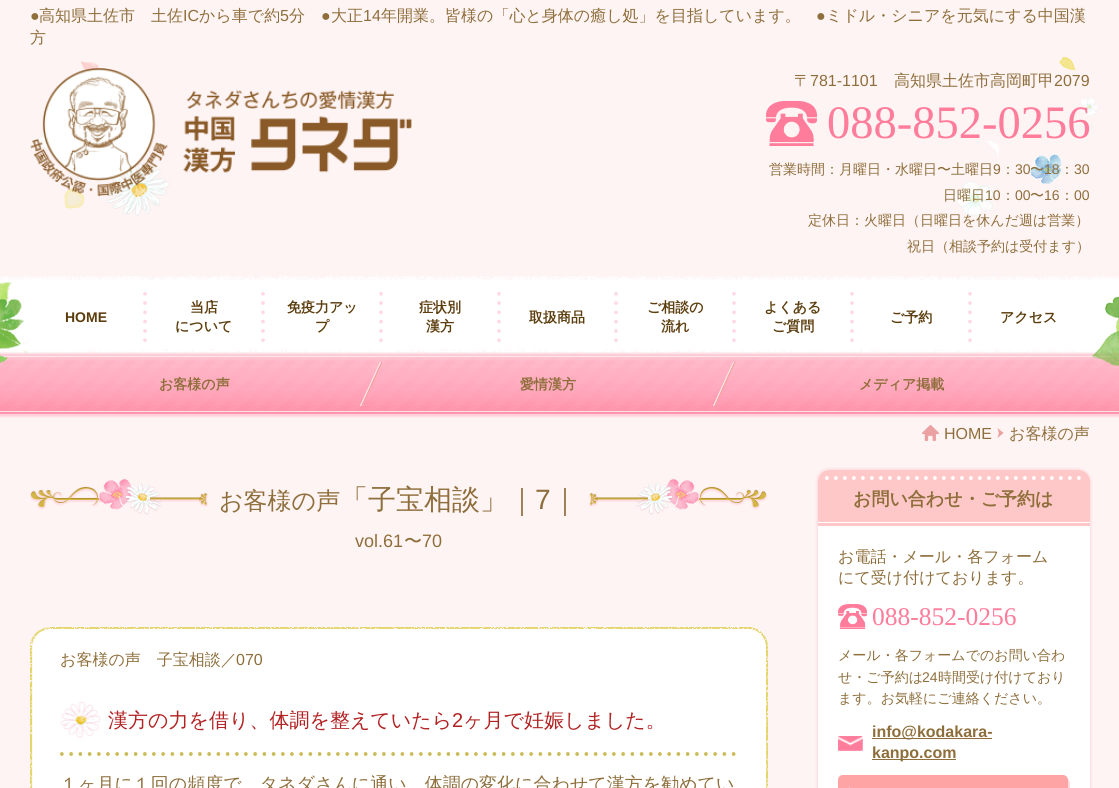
import math
import cairocffi as cairo

surface = cairo.ImageSurface(cairo.FORMAT_RGB24, 1119, 788)
ctx = cairo.Context(surface)
options = cairo.FontOptions()
options.set_hint_metrics(cairo.HINT_METRICS_OFF)
options.set_hint_style(cairo.HINT_STYLE_NONE)
ctx.set_font_options(options)
ctx.set_miter_limit(4)


def rgb(r, g, b):
    ctx.set_source_rgb(r / 255, g / 255, b / 255)


def face(family, size, italic, bold):
    ctx.select_font_face(family, cairo.FONT_SLANT_ITALIC if italic else cairo.FONT_SLANT_NORMAL, cairo.FONT_WEIGHT_BOLD if bold else cairo.FONT_WEIGHT_NORMAL)
    ctx.set_font_size(size)


def label(x, y, s):
    ctx.move_to(x, y)
    ctx.show_text(s)


def rect(x, y, w, h):
    ctx.rectangle(x, y, w, h)
    ctx.fill()


def rrect(x, y, w, h, r):
    ctx.new_sub_path()
    for i, (u, v) in enumerate([(x + w - r, y + h - r), (x + r, y + h - r), (x + r, y + r), (x + w - r, y + r)]):
        ctx.arc(u, v, r, i * math.pi / 2, (i + 1) * math.pi / 2)
    ctx.close_path()


def soft_shadow(x, y, w, h, r, blur, alpha):
    ctx.push_group_with_content(cairo.CONTENT_ALPHA)
    ctx.set_operator(cairo.OPERATOR_SOURCE)
    for i in range(15, -16, -2):
        e = blur * i / 6
        if min(w, h) + 2 * e > 0:
            ctx.set_source_rgba(0, 0, 0, alpha * math.erfc((i - 1) / 8.5) / 2)
            rrect(x - e, y - e, w + 2 * e, h + 2 * e, max(0, min(r + e + blur * .6, min(w, h) / 2 + e)))
            ctx.fill()
    ctx.mask(ctx.pop_group())


def image(path, x, y, w, h):
    ctx.save()
    ctx.set_source_surface(cairo.ImageSurface.create_from_png(path), x, y)
    ctx.rectangle(x, y, w, h)
    ctx.fill()
    ctx.restore()


rgb(255, 244, 244)
ctx.paint()
image('image0.png', 39, 57, 1060, 159)
face('Liberation Sans', 16, 0, 0)
rgb(142, 110, 59)
label(30, 21, '●')
face('WenQuanYi Zen Hei Medium', 16, 0, 0)
label(39, 21, '高知県土佐市　土佐')
face('Liberation Sans', 16, 0, 0)
label(183, 21, 'IC')
face('WenQuanYi Zen Hei Medium', 16, 0, 0)
label(199, 21, 'から車で約')
face('Liberation Sans', 16, 0, 0)
label(280, 21, '5')
face('WenQuanYi Zen Hei Medium', 16, 0, 0)
label(289, 21, '分')
face('Liberation Sans', 16, 0, 0)
label(321, 21, '●')
face('WenQuanYi Zen Hei Medium', 16, 0, 0)
label(331, 21, '大正')
face('Liberation Sans', 16, 0, 0)
label(363, 21, '14')
face('WenQuanYi Zen Hei Medium', 16, 0, 0)
label(381, 21, '年開業。皆様の「心と身体の癒し処」を目指しています。')
face('Liberation Sans', 16, 0, 0)
label(816, 21, '●')
face('WenQuanYi Zen Hei Medium', 16, 0, 0)
label(826, 21, 'ミドル・シニアを元気にする中国漢')
label(30, 43, '方')
image('image1.png', 30, 68, 382, 129)
label(794, 86, '〒')
face('Liberation Sans', 16, 0, 0)
label(810, 86, '781-1101')
face('WenQuanYi Zen Hei Medium', 16, 0, 0)
label(894, 86, '高知県土佐市高岡町甲')
face('Liberation Sans', 16, 0, 0)
label(1054, 86, '2079')
image('image2.png', 766, 101, 51, 45)
face('Liberation Serif', 46.5, 0, 0)
rgb(255, 124, 155)
label(827, 138, '088-852-0256')
face('WenQuanYi Zen Hei Medium', 14, 0, 0)
rgb(142, 110, 59)
label(769, 174, '営業時間：月曜日・水曜日〜土曜日')
face('Liberation Sans', 14, 0, 0)
label(993, 174, '9')
face('WenQuanYi Zen Hei Medium', 14, 0, 0)
label(1001, 174, '：')
face('Liberation Sans', 14, 0, 0)
label(1015, 174, '30')
face('WenQuanYi Zen Hei Medium', 14, 0, 0)
label(1030, 174, '〜')
face('Liberation Sans', 14, 0, 0)
label(1044, 174, '18')
face('WenQuanYi Zen Hei Medium', 14, 0, 0)
label(1060, 174, '：')
face('Liberation Sans', 14, 0, 0)
label(1074, 174, '30')
face('WenQuanYi Zen Hei Medium', 14, 0, 0)
label(943, 200, '日曜日')
face('Liberation Sans', 14, 0, 0)
label(985, 200, '10')
face('WenQuanYi Zen Hei Medium', 14, 0, 0)
label(1001, 200, '：')
face('Liberation Sans', 14, 0, 0)
label(1015, 200, '00')
face('WenQuanYi Zen Hei Medium', 14, 0, 0)
label(1030, 200, '〜')
face('Liberation Sans', 14, 0, 0)
label(1044, 200, '16')
face('WenQuanYi Zen Hei Medium', 14, 0, 0)
label(1060, 200, '：')
face('Liberation Sans', 14, 0, 0)
label(1074, 200, '00')
face('WenQuanYi Zen Hei Medium', 14, 0, 0)
label(808, 225, '定休日：火曜日（日曜日を休んだ週は営業）')
label(907, 251, '祝日（相談予約は受付ます）')
image('image7.png', 0, 354, 1119, 64)
image('image3.png', 0, 276, 1119, 84)
image('image4.png', 143, 292, 4, 50)
image('image5.png', 0, 282, 29, 81)
face('Liberation Sans', 14, 0, 1)
rgb(93, 62, 14)
label(65, 322, 'HOME')
image('image4.png', 261, 292, 4, 50)
face('WenQuanYi Zen Hei', 14, 0, 1)
label(190, 312, '当店')
label(175, 331, 'について')
image('image4.png', 379, 292, 4, 50)
label(287, 312, '免疫力アッ')
label(315, 331, 'プ')
image('image4.png', 497, 292, 4, 50)
label(419, 312, '症状別')
label(426, 331, '漢方')
image('image4.png', 614, 292, 4, 50)
label(529, 322, '取扱商品')
image('image4.png', 732, 292, 4, 50)
label(647, 312, 'ご相談の')
label(661, 331, '流れ')
image('image4.png', 850, 292, 4, 50)
label(764, 312, 'よくある')
label(772, 331, 'ご質問')
image('image4.png', 968, 292, 4, 50)
label(890, 322, 'ご予約')
label(1000, 322, 'アクセス')
image('image6.png', 1091, 296, 28, 70)
image('image8.png', 360, 362, 23, 44)
rgb(142, 110, 59)
label(159, 389, 'お客様の声')
image('image9.png', 713, 362, 23, 44)
label(520, 389, '愛情漢方')
label(859, 389, 'メディア掲載')
image('image10.png', 922, 425, 17, 16)
face('Liberation Sans', 16, 0, 0)
label(944, 439, 'HOME')
image('image11.png', 997, 428, 7, 10)
face('WenQuanYi Zen Hei Medium', 16, 0, 0)
label(1009, 439, 'お客様の声')
image('image12.png', 30, 478, 738, 37)
image('image13.png', 150, 497, 52, 5)
image('image14.png', 199, 493, 10, 14)
face('WenQuanYi Zen Hei Medium', 24, 0, 0)
label(219, 509, 'お客様の声')
face('WenQuanYi Zen Hei Medium', 28, 0, 0)
label(340, 509, '「子宝相談」｜')
face('Liberation Sans', 28, 0, 0)
label(535, 509, '7')
face('WenQuanYi Zen Hei Medium', 28, 0, 0)
label(551, 509, '｜')
image('image16.png', 595, 497, 53, 5)
image('image15.png', 588, 493, 10, 14)
face('Liberation Sans', 18, 0, 0)
label(355, 547, 'vol.61')
face('WenQuanYi Zen Hei Medium', 18, 0, 0)
label(404, 547, '〜')
face('Liberation Sans', 18, 0, 0)
label(422, 547, '70')
rgb(255, 255, 255)
rect(51, 647, 697, 141)
image('image17.png', 30, 627, 738, 161)
face('WenQuanYi Zen Hei Medium', 16, 0, 0)
rgb(142, 110, 59)
label(60, 665, 'お客様の声　子宝相談／')
face('Liberation Sans', 16, 0, 0)
label(236, 665, '070')
image('image18.png', 60, 701, 41, 37)
face('WenQuanYi Zen Hei Medium', 20, 0, 0)
rgb(178, 34, 34)
label(108, 727, '漢方の力を借り、体調を整えていたら')
face('Liberation Sans', 20, 0, 0)
label(452, 727, '2')
face('WenQuanYi Zen Hei Medium', 20, 0, 0)
label(463, 727, 'ヶ月で妊娠しました。')
image('image19.png', 60, 752, 676, 4)
face('WenQuanYi Zen Hei Medium', 18, 0, 0)
rgb(142, 110, 59)
label(60, 790, '１ヶ月に１回の頻度で、タネダさんに通い、体調の変化に合わせて漢方を勧めてい')
rgb(251, 218, 225)
soft_shadow(817, 469, 272, 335, 11, 1.5, 1)
soft_shadow(819, 471, 272, 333, 11, 1.5, 1)
rgb(255, 255, 255)
rrect(818, 470, 272, 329, 11)
ctx.fill()
rgb(255, 200, 200)
ctx.new_path()
ctx.move_to(829, 470)
ctx.line_to(1079, 470)
ctx.curve_to(1085, 470, 1090, 475, 1090, 481)
ctx.line_to(1090, 526)
ctx.line_to(818, 526)
ctx.line_to(818, 481)
ctx.curve_to(818, 475, 823, 470, 829, 470)
ctx.close_path()
ctx.fill()
image('image20.png', 825, 476, 256, 4)
face('WenQuanYi Zen Hei', 18, 0, 1)
rgb(142, 110, 59)
label(853, 505, 'お問い合わせ・ご予約は')
rgb(255, 255, 255)
rect(818, 522, 272, 1)
face('WenQuanYi Zen Hei Medium', 16, 0, 0)
rgb(142, 110, 59)
label(838, 562, 'お電話・メール・各フォーム')
label(838, 583, 'にて受け付けております。')
image('image21.png', 838, 604, 29, 25)
face('Liberation Serif', 25.5, 0, 0)
rgb(255, 124, 155)
label(872, 625, '088-852-0256')
face('WenQuanYi Zen Hei Medium', 14, 0, 0)
rgb(142, 110, 59)
label(838, 660, 'メール・各フォームでのお問い合わ')
label(838, 682, 'せ・ご予約は')
face('Liberation Sans', 14, 0, 0)
label(922, 682, '24')
face('WenQuanYi Zen Hei Medium', 14, 0, 0)
label(938, 682, '時間受け付けており')
label(838, 703, 'ます。お気軽にご連絡ください。')
image('image22.png', 838, 736, 25, 15)
rect(872, 738, 120, 1)
face('Liberation Sans', 16, 0, 1)
label(872, 737, 'info@kodakara-')
rect(872, 759, 84, 1)
label(872, 758, 'kanpo.com')
rgb(254, 218, 225)
ctx.new_path()
ctx.move_to(840, 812)
ctx.curve_to(841, 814, 843, 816, 845, 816)
ctx.line_to(1065, 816)
ctx.curve_to(1068, 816, 1070, 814, 1070, 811)
ctx.line_to(1070, 783)
ctx.curve_to(1070, 781, 1069, 780, 1068, 779)
ctx.line_to(1068, 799)
ctx.curve_to(1068, 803, 1070, 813, 1063, 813)
ctx.line_to(843, 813)
ctx.close_path()
ctx.fill()
rgb(255, 164, 164)
rrect(838, 775, 230, 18, 5)
ctx.fill()
image('image23.png', 848, 787, 3, 1)
surface.write_to_png('render.png')
